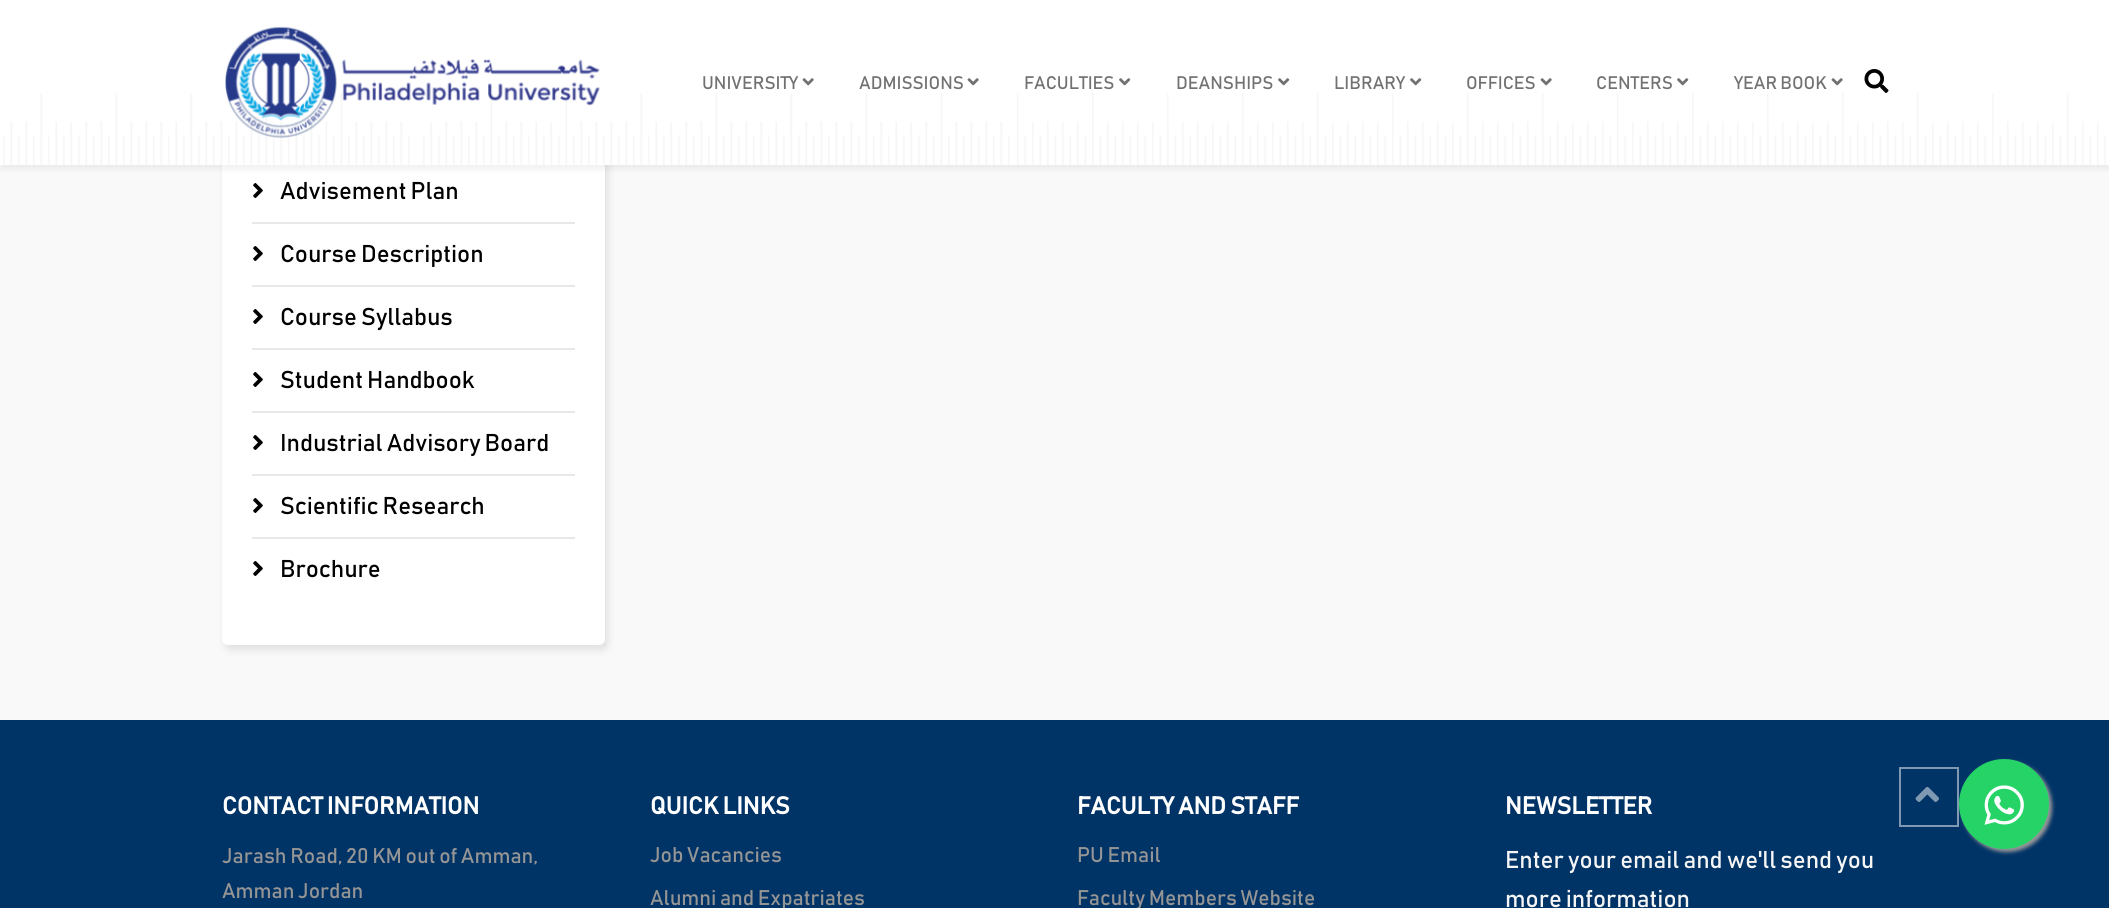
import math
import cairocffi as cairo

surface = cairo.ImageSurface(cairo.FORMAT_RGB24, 2109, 908)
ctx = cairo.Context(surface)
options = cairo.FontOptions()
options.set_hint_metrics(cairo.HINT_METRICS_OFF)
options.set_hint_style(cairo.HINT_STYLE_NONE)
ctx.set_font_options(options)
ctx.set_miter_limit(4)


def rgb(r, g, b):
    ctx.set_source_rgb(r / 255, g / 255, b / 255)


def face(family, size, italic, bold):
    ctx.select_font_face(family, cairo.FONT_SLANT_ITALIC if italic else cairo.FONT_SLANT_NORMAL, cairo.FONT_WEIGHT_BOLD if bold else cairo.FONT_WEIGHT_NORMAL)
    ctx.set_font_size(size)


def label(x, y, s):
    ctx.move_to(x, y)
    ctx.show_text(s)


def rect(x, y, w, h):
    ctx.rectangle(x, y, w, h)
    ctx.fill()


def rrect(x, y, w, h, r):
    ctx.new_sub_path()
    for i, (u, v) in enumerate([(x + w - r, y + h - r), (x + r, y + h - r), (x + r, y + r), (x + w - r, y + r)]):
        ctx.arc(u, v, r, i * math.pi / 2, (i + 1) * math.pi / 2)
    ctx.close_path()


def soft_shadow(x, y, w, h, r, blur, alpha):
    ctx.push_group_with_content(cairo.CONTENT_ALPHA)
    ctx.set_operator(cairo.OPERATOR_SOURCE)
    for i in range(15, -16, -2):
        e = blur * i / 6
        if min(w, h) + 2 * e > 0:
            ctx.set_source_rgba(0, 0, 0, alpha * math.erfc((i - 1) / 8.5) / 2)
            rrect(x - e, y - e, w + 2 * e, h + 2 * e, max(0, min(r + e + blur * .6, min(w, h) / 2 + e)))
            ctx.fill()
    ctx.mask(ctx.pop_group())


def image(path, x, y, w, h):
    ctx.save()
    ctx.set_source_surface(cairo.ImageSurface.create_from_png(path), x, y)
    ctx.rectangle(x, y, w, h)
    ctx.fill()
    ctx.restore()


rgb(249, 249, 249)
ctx.paint()
rgb(0, 0, 0)
soft_shadow(225, -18, 383, 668, 6, 4, 0.1)
rgb(255, 255, 255)
rrect(222, -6, 383, 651, 6)
ctx.fill()
rgb(0, 0, 0)
soft_shadow(0, 5, 2109, 165, 0, 2, 0.05)
rgb(255, 255, 255)
rect(0, 0, 2109, 165)
image('image0.png', 3, 93, 2103, 72)
image('image1.png', 225, 26, 375, 112)
face('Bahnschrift', 18, 0, 0)
rgb(113, 113, 113)
label(702, 89, 'UNIVERSITY')
image('image2.png', 802, 78, 12, 8)
label(859, 89, 'ADMISSIONS')
image('image2.png', 967, 78, 12, 8)
label(1024, 89, 'FACULTIES')
image('image3.png', 1119, 78, 12, 8)
label(1176, 89, 'DEANSHIPS')
image('image3.png', 1278, 78, 12, 8)
label(1334, 89, 'LIBRARY')
image('image3.png', 1410, 78, 12, 8)
label(1466, 89, 'OFFICES')
image('image2.png', 1540, 78, 12, 8)
label(1596, 89, 'CENTERS')
image('image3.png', 1677, 78, 12, 8)
label(1734, 89, 'YEAR BOOK')
image('image2.png', 1831, 78, 12, 8)
image('image4.png', 1864, 69, 25, 24)
rgb(232, 232, 232)
rect(252, 222, 323, 2)
image('image5.png', 253, 183, 10, 15)
face('Bahnschrift', 24, 0, 0)
rgb(0, 0, 0)
label(280, 199, 'Advisement Plan')
rgb(232, 232, 232)
rect(252, 285, 323, 2)
image('image5.png', 253, 246, 10, 15)
rgb(0, 0, 0)
label(280, 262, 'Course Description')
rgb(232, 232, 232)
rect(252, 348, 323, 2)
image('image5.png', 253, 309, 10, 15)
rgb(0, 0, 0)
label(280, 325, 'Course Syllabus')
rgb(232, 232, 232)
rect(252, 411, 323, 2)
image('image5.png', 253, 372, 10, 15)
rgb(0, 0, 0)
label(280, 388, 'Student Handbook')
rgb(232, 232, 232)
rect(252, 474, 323, 2)
image('image5.png', 253, 435, 10, 15)
rgb(0, 0, 0)
label(280, 451, 'Industrial Advisory Board')
rgb(232, 232, 232)
rect(252, 537, 323, 2)
image('image5.png', 253, 498, 10, 15)
rgb(0, 0, 0)
label(280, 514, 'Scientific Research')
image('image5.png', 253, 561, 10, 15)
label(280, 577, 'Brochure')
rgb(0, 51, 102)
rect(0, 720, 2109, 188)
face('Bahnschrift', 24, 0, 1)
rgb(255, 255, 255)
label(222, 814, 'CONTACT INFORMATION')
face('Bahnschrift', 21, 0, 0)
rgb(149, 149, 149)
label(222, 863, 'Jarash Road, 20 KM out of Amman,')
label(222, 898, 'Amman Jordan')
face('Bahnschrift', 24, 0, 1)
rgb(255, 255, 255)
label(650, 814, 'QUICK LINKS')
face('Bahnschrift', 21, 0, 0)
rgb(149, 149, 149)
label(650, 862, 'Job Vacancies')
label(650, 905, 'Alumni and Expatriates')
face('Bahnschrift', 24, 0, 1)
rgb(255, 255, 255)
label(1077, 814, 'FACULTY AND STAFF')
face('Bahnschrift', 21, 0, 0)
rgb(149, 149, 149)
label(1077, 862, 'PU Email')
label(1077, 905, 'Faculty Members Website')
face('Bahnschrift', 24, 0, 1)
rgb(255, 255, 255)
label(1505, 814, 'NEWSLETTER')
face('Bahnschrift', 24, 0, 0)
rgb(245, 245, 245)
label(1505, 868, 'Enter your email and we\'ll send you')
label(1505, 907, 'more information')
rgb(153, 153, 153)
soft_shadow(1962, 762, 90, 90, 45, 2, 1)
ctx.set_source_rgba(0, 0.2, 0.4, 0.5)
rect(1958, 804, 1, 6)
ctx.rectangle(1900, 768, 58, 58)
ctx.set_source_rgba(1, 1, 1, 0.5)
ctx.stroke()
image('image6.png', 1915, 786, 24, 16)
rgb(37, 211, 102)
ctx.arc(2004, 804, 45, 0, 2 * math.pi)
ctx.fill()
image('image7.png', 1984, 785, 40, 40)
surface.write_to_png('render.png')
